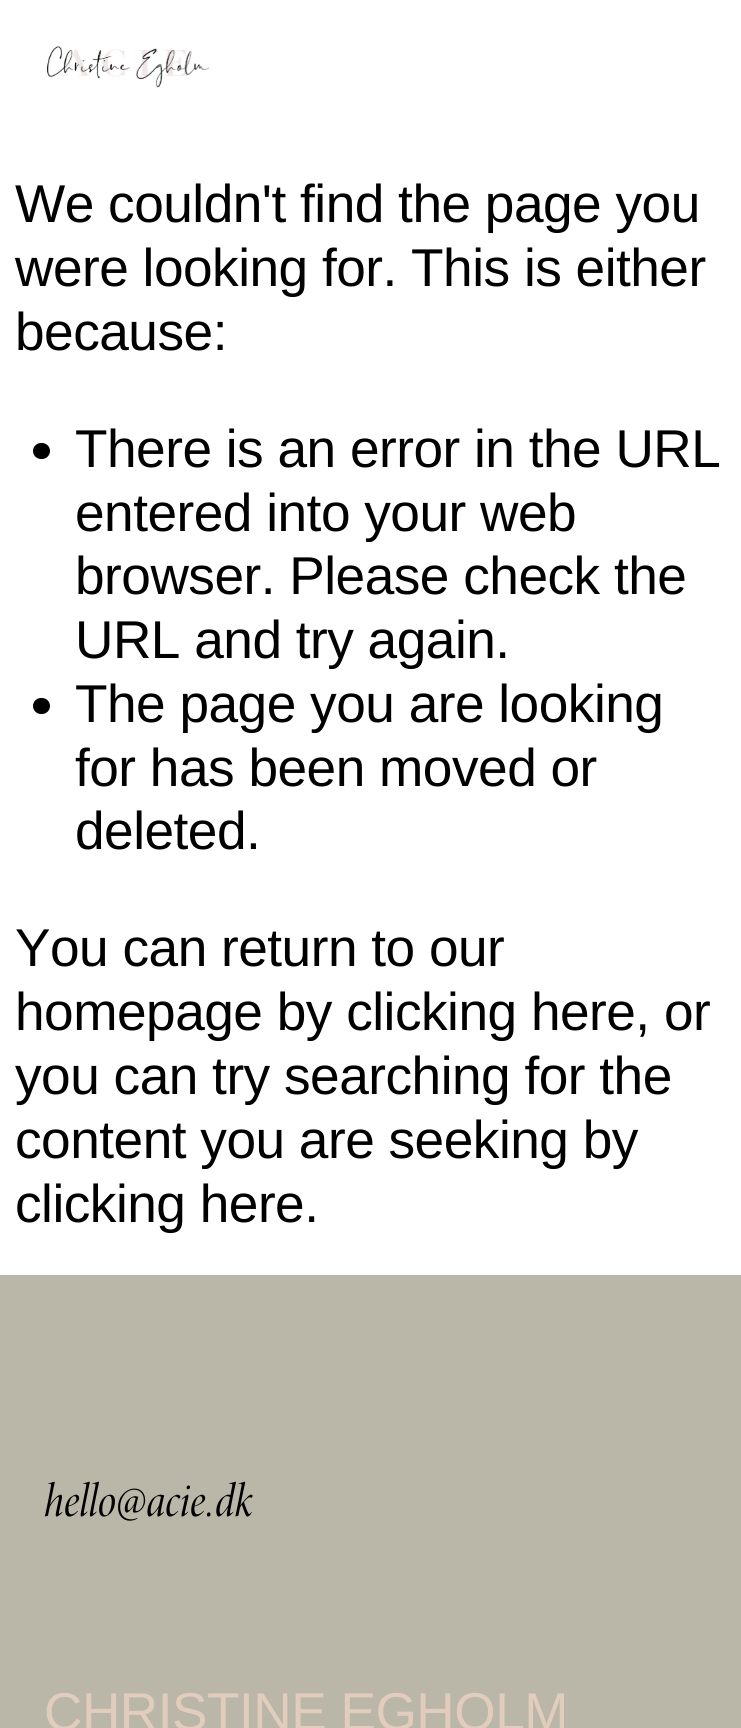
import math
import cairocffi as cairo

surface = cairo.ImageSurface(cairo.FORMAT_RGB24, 741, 1728)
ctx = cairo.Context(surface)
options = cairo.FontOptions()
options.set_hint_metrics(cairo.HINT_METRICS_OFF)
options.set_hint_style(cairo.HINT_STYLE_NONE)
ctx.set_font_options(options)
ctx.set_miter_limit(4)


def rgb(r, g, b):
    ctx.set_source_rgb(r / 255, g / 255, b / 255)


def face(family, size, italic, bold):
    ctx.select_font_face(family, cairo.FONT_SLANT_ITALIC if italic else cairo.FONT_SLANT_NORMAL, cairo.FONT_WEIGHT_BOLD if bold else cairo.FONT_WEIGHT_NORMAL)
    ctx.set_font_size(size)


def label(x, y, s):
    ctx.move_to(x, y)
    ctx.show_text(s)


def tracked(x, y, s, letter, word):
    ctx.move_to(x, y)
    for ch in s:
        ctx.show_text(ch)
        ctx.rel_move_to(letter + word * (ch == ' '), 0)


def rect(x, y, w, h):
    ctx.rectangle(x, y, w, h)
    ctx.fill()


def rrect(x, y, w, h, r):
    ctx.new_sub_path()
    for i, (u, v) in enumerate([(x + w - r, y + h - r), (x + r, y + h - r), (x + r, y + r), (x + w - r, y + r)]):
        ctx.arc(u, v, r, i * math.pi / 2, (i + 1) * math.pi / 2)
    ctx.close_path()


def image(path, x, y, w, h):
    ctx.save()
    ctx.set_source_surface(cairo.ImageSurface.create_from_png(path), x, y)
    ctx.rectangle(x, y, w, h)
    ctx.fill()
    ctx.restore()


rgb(255, 255, 255)
ctx.paint()
image('image0.png', 47, 46, 163, 42)
face('Liberation Sans', 53.2, 0, 0)
rgb(0, 0, 0)
tracked(15, 222, 'We couldn\'t find the page you', -0.5, 0)
tracked(15, 286, 'were looking for. This is either', -0.5, 0)
tracked(15, 350, 'because:', -0.5, 0)
rrect(33, 443, 17, 16, 8)
ctx.fill()
tracked(75, 467, 'There is an error in the URL', -0.5, 0)
tracked(75, 531, 'entered into your web', -0.5, 0)
tracked(75, 594, 'browser. Please check the', -0.5, 0)
tracked(75, 658, 'URL and try again.', -0.5, 0)
rrect(33, 698, 17, 16, 8)
ctx.fill()
tracked(75, 722, 'The page you are looking', -0.5, 0)
tracked(75, 786, 'for has been moved or', -0.5, 0)
tracked(75, 849, 'deleted.', -0.5, 0)
tracked(15, 966, 'You can return to our', -0.5, 0)
tracked(15, 1030, 'homepage by clicking here, or', -0.5, 0)
tracked(15, 1094, 'you can try searching for the', -0.5, 0)
tracked(15, 1158, 'content you are seeking by', -0.5, 0)
tracked(15, 1222, 'clicking here.', -0.5, 0)
rgb(186, 183, 168)
rect(0, 1275, 741, 453)
face('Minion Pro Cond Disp', 48.5, 1, 0)
rgb(0, 0, 0)
label(44, 1516, 'hello@acie.dk')
face('Liberation Sans', 53.2, 0, 0)
rgb(225, 204, 190)
tracked(44, 1730, 'CHRISTINE EGHOLM', -0.5, 0)
surface.write_to_png('render.png')
